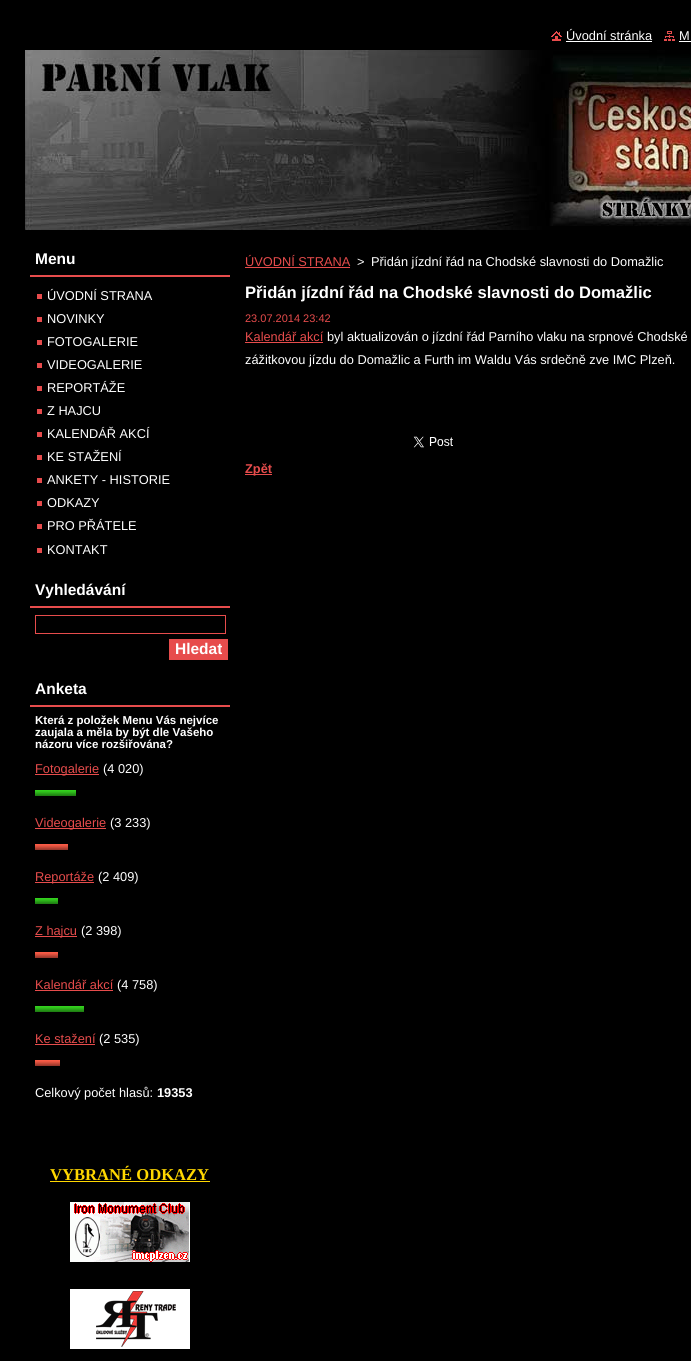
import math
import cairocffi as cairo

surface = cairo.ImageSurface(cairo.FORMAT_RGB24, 691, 1361)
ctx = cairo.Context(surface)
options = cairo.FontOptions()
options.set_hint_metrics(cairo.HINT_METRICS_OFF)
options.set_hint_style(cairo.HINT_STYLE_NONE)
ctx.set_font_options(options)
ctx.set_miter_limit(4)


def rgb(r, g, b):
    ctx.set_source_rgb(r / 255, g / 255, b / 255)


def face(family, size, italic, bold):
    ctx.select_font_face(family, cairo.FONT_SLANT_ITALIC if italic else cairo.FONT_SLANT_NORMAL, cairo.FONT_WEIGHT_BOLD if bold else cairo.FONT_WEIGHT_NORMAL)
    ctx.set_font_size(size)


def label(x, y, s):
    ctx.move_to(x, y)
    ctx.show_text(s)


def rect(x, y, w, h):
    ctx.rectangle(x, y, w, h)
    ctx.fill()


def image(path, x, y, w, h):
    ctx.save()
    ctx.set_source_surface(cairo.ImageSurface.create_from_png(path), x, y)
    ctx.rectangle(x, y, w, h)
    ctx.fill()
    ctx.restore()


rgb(0, 0, 0)
ctx.paint()
image('image0.png', 551, 31, 11, 10)
face('Liberation Sans', 12.8, 0, 0)
rgb(255, 255, 255)
label(566, 40, 'Úvodní stránka')
rect(566, 41, 86, 1)
image('image1.png', 664, 31, 11, 10)
label(679, 40, 'M')
rect(679, 41, 12, 1)
image('image2.png', 25, 50, 666, 180)
rgb(231, 76, 76)
rect(30, 275, 200, 2)
face('Liberation Sans', 15.5, 0, 1)
rgb(255, 255, 255)
label(35, 264, 'Menu')
face('Liberation Sans', 12.8, 0, 0)
label(47, 300, 'ÚVODNÍ STRANA')
rgb(231, 75, 76)
rect(37, 294, 5, 5)
rgb(255, 255, 255)
label(47, 323, 'NOVINKY')
rgb(231, 75, 76)
rect(37, 317, 5, 5)
rgb(255, 255, 255)
label(47, 346, 'FOTOGALERIE')
rgb(231, 75, 76)
rect(37, 340, 5, 5)
rgb(255, 255, 255)
label(47, 369, 'VIDEOGALERIE')
rgb(231, 75, 76)
rect(37, 363, 5, 5)
rgb(255, 255, 255)
label(47, 392, 'REPORTÁŽE')
rgb(231, 75, 76)
rect(37, 386, 5, 5)
rgb(255, 255, 255)
label(47, 415, 'Z HAJCU')
rgb(231, 75, 76)
rect(37, 409, 5, 5)
rgb(255, 255, 255)
label(47, 438, 'KALENDÁŘ AKCÍ')
rgb(231, 75, 76)
rect(37, 432, 5, 5)
rgb(255, 255, 255)
label(47, 461, 'KE STAŽENÍ')
rgb(231, 75, 76)
rect(37, 455, 5, 5)
rgb(255, 255, 255)
label(47, 484, 'ANKETY - HISTORIE')
rgb(231, 75, 76)
rect(37, 478, 5, 5)
rgb(255, 255, 255)
label(47, 507, 'ODKAZY')
rgb(231, 75, 76)
rect(37, 501, 5, 5)
rgb(255, 255, 255)
label(47, 530, 'PRO PŘÁTELE')
rgb(231, 75, 76)
rect(37, 524, 5, 5)
rgb(255, 255, 255)
label(47, 554, 'KONTAKT')
rgb(231, 75, 76)
rect(37, 548, 5, 5)
rgb(231, 76, 76)
rect(30, 606, 200, 2)
face('Liberation Sans', 15.5, 0, 1)
rgb(255, 255, 255)
label(35, 595, 'Vyhledávání')
ctx.rectangle(35.5, 615.5, 190, 18)
rgb(231, 76, 76)
ctx.set_line_width(1)
ctx.stroke()
rect(169, 639, 59, 21)
rgb(255, 255, 255)
label(175, 654, 'Hledat')
rgb(231, 76, 76)
rect(30, 705, 200, 2)
rgb(255, 255, 255)
label(35, 694, 'Anketa')
face('Liberation Sans', 11.5, 0, 1)
label(35, 724, 'Která z položek Menu Vás nejvíce')
label(35, 736, 'zaujala a měla by být dle Vašeho')
label(35, 748, 'názoru více rozšiřována?')
rgb(231, 76, 76)
rect(35, 774, 64, 1)
face('Liberation Sans', 12.8, 0, 0)
label(35, 773, 'Fotogalerie')
rgb(255, 255, 255)
label(103, 773, '(4 020)')
image('image3.png', 35, 790, 41, 6)
rgb(231, 76, 76)
rect(35, 828, 71, 1)
label(35, 827, 'Videogalerie')
rgb(255, 255, 255)
label(110, 827, '(3 233)')
image('image4.png', 35, 844, 33, 6)
rgb(231, 76, 76)
rect(35, 882, 59, 1)
label(35, 881, 'Reportáže')
rgb(255, 255, 255)
label(98, 881, '(2 409)')
image('image5.png', 35, 898, 23, 6)
rgb(231, 76, 76)
rect(35, 936, 42, 1)
label(35, 935, 'Z hajcu')
rgb(255, 255, 255)
label(81, 935, '(2 398)')
image('image6.png', 35, 952, 23, 6)
rgb(231, 76, 76)
label(35, 989, 'Kalendář akcí')
rect(35, 990, 78, 1)
rgb(255, 255, 255)
label(117, 989, '(4 758)')
image('image7.png', 35, 1006, 49, 6)
rgb(231, 76, 76)
label(35, 1043, 'Ke stažení')
rect(35, 1044, 60, 1)
rgb(255, 255, 255)
label(99, 1043, '(2 535)')
image('image8.png', 35, 1060, 25, 6)
label(35, 1097, 'Celkový počet hlasů:')
face('Liberation Sans', 12.8, 0, 1)
label(157, 1097, '19353')
face('Liberation Serif', 16.6, 0, 1)
rgb(255, 215, 0)
label(50, 1180, 'VYBRANÉ ODKAZY')
rect(50, 1181, 160, 1)
image('image9.png', 70, 1202, 120, 60)
image('image10.png', 70, 1289, 120, 60)
face('Liberation Sans', 12.8, 0, 0)
rgb(231, 76, 76)
label(245, 266, 'ÚVODNÍ STRANA')
rect(245, 267, 105, 1)
rgb(255, 255, 255)
label(357, 266, '>')
label(371, 266, 'Přidán jízdní řád na Chodské slavnosti do Domažlic')
face('Liberation Sans', 16.6, 0, 1)
label(245, 298, 'Přidán jízdní řád na Chodské slavnosti do Domažlic')
face('Liberation Sans', 11, 0, 0)
rgb(231, 76, 76)
label(245, 322, '23.07.2014 23:42')
face('Liberation Sans', 12.8, 0, 0)
label(245, 341, 'Kalendář akcí')
rect(245, 342, 78, 1)
rgb(255, 255, 255)
label(327, 341, 'byl aktualizován o jízdní řád Parního vlaku na srpnové Chodské')
label(245, 364, 'zážitkovou jízdu do Domažlic a Furth im Waldu Vás srdečně zve IMC Plzeň.')
image('image11.png', 413, 436, 40, 12)
rgb(231, 76, 76)
rect(245, 474, 27, 1)
face('Liberation Sans', 12.8, 0, 1)
label(245, 473, 'Zpět')
surface.write_to_png('render.png')
